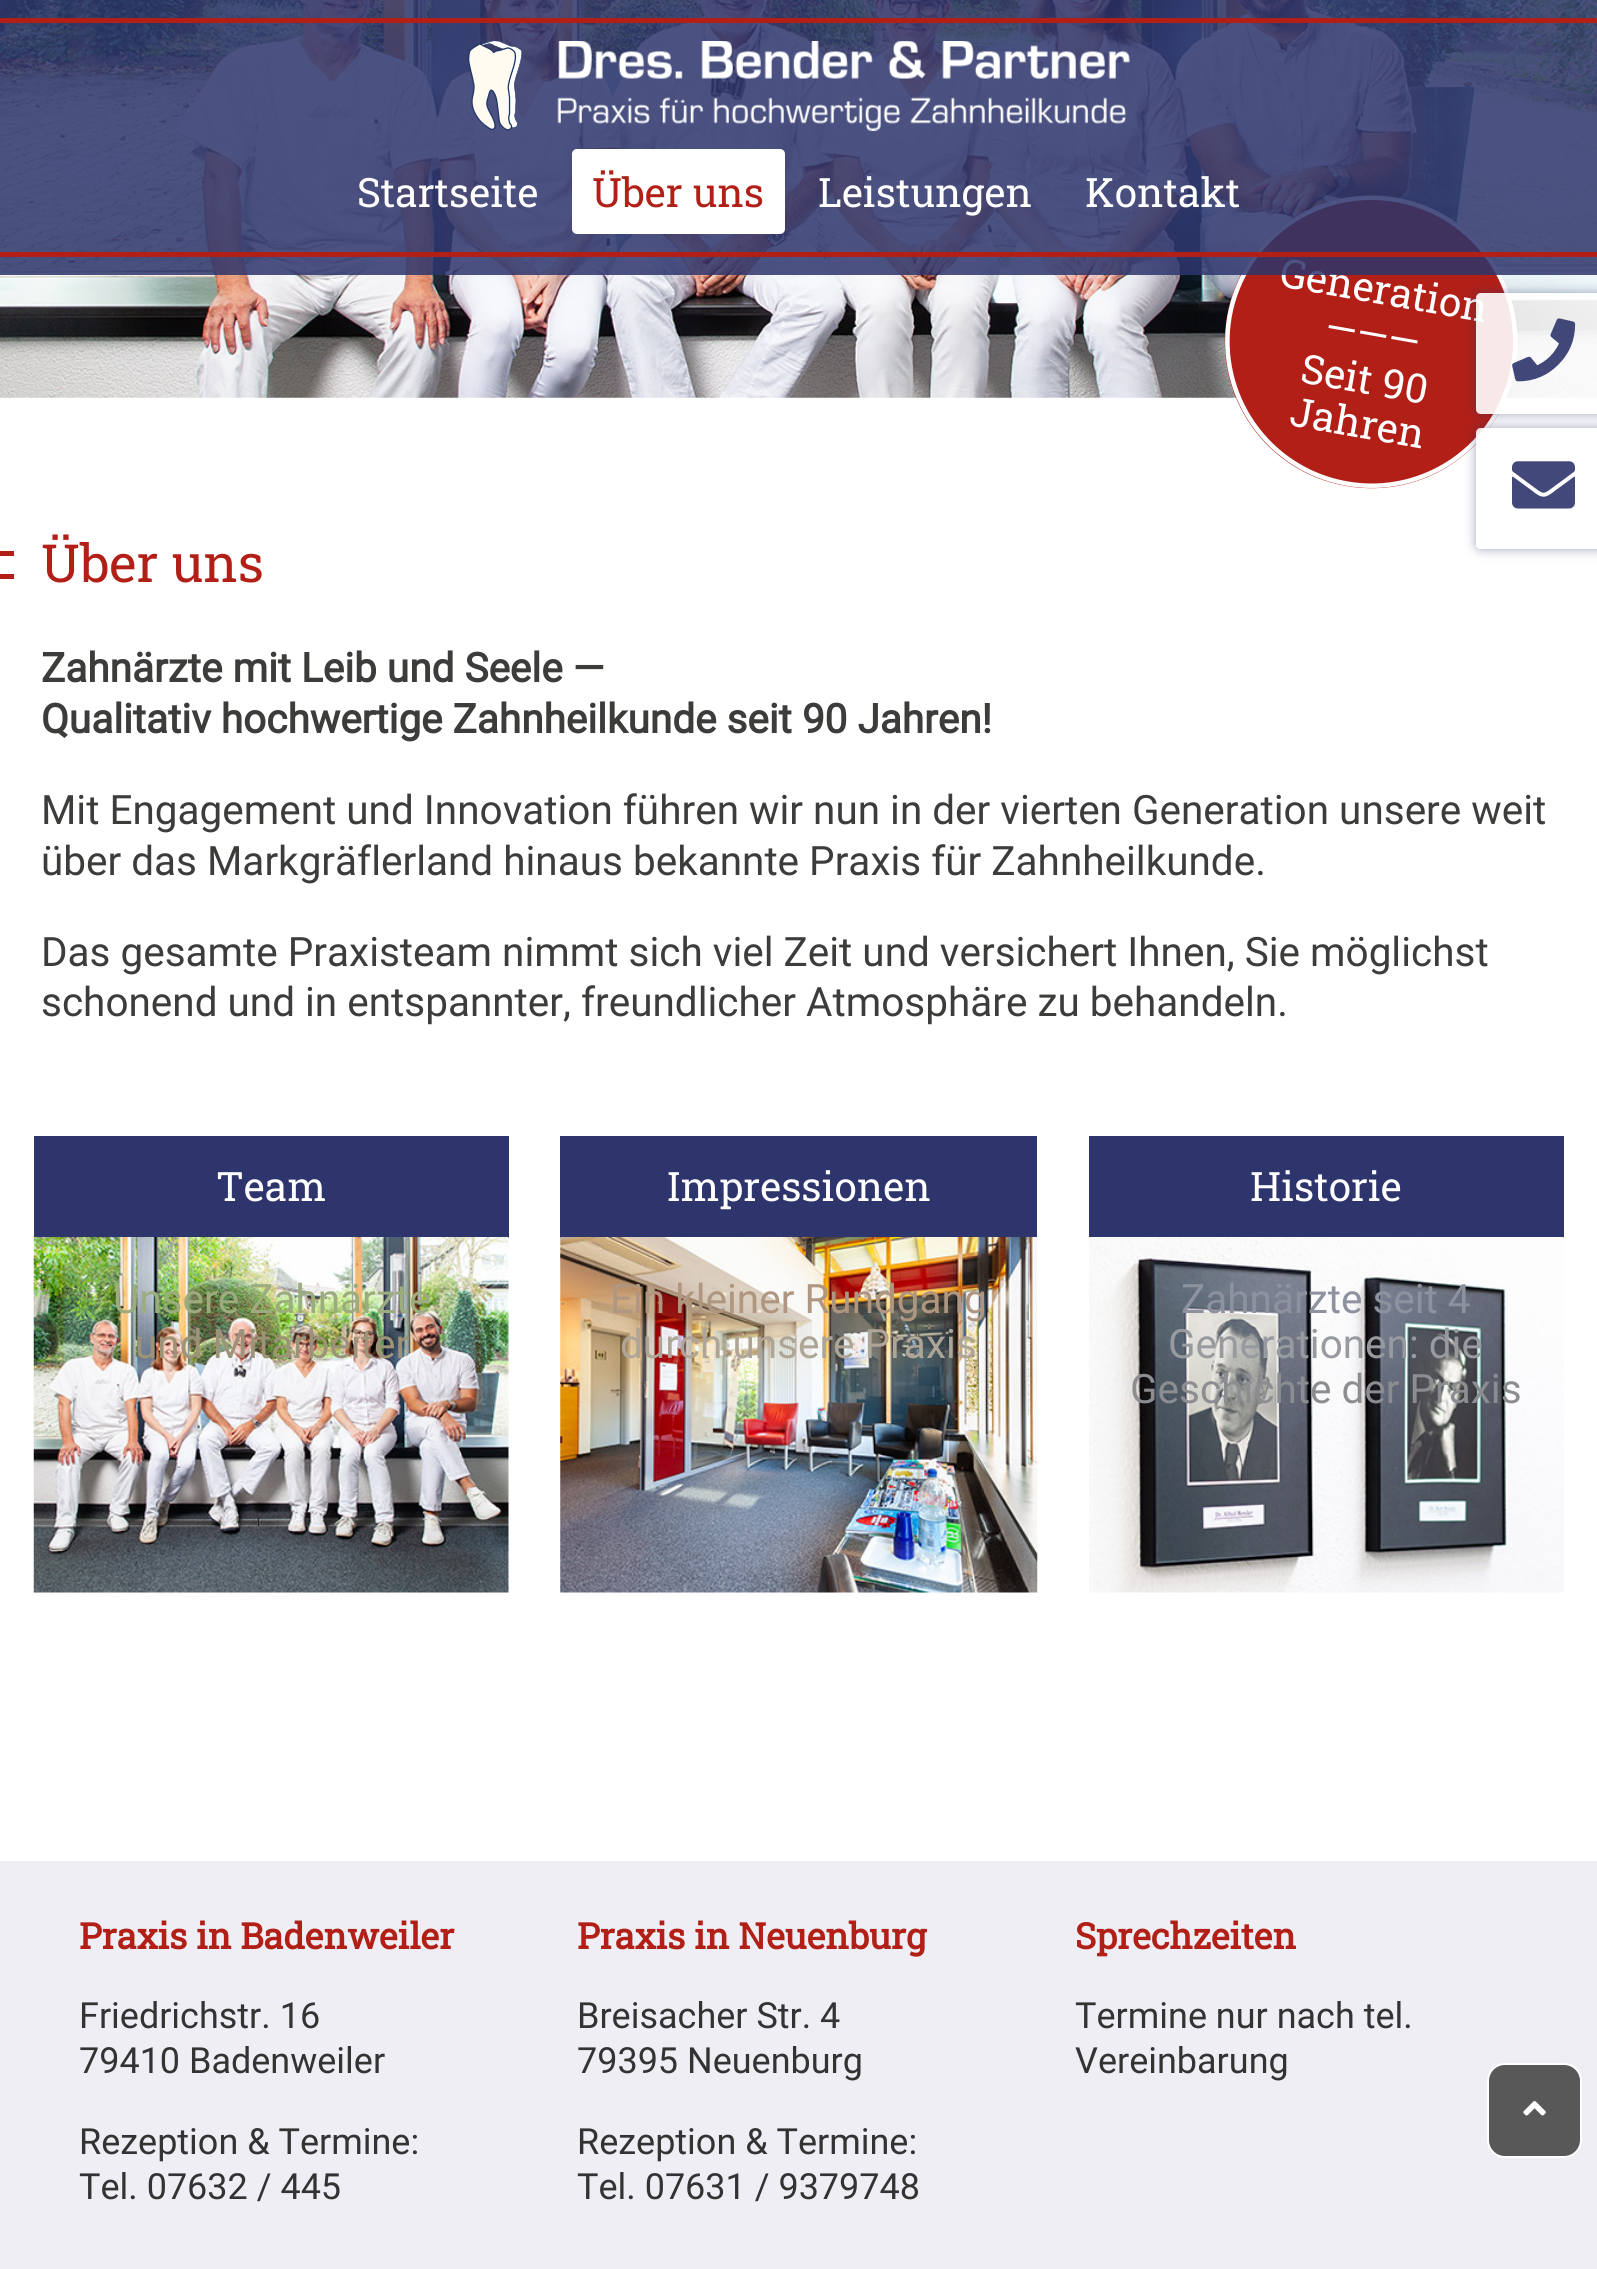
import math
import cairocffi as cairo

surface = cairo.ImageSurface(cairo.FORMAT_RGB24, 1597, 2269)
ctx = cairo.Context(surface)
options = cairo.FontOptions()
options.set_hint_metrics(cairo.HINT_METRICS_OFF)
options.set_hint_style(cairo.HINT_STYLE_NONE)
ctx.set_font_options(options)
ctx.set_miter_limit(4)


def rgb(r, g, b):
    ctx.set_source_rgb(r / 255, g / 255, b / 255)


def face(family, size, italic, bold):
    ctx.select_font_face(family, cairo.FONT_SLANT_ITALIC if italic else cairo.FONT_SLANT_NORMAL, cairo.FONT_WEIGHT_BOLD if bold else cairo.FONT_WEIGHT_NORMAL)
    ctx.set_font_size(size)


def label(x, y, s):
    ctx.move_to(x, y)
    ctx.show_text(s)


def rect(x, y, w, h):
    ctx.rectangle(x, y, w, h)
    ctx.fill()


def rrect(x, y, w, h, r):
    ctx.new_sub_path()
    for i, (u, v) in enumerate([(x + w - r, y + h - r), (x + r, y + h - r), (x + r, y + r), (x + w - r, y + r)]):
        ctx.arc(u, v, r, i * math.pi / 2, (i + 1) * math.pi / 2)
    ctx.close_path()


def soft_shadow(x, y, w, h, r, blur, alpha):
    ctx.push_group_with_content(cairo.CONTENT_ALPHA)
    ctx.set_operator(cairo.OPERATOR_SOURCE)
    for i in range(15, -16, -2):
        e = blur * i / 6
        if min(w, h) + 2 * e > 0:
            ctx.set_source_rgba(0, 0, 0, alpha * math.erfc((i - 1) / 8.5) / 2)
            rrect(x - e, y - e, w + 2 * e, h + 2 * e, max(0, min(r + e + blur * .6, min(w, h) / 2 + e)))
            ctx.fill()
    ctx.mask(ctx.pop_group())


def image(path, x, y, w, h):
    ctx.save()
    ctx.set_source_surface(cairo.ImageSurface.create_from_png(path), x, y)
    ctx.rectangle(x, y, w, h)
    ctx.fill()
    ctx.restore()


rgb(255, 255, 255)
ctx.paint()
image('image0.png', 0, 0, 1597, 398)
rgb(177, 31, 23)
ctx.new_path()
ctx.move_to(1397, 198)
ctx.curve_to(1476, 212, 1529, 288, 1515, 367)
ctx.curve_to(1501, 447, 1426, 500, 1346, 486)
ctx.curve_to(1266, 472, 1213, 396, 1227, 316)
ctx.curve_to(1241, 237, 1317, 184, 1397, 198)
ctx.close_path()
ctx.fill()
ctx.new_path()
ctx.move_to(1396.5, 200)
ctx.curve_to(1474.5, 213.5, 1527, 288.5, 1513, 366.5)
ctx.curve_to(1499.5, 445, 1424.5, 497.5, 1346.5, 483.5)
ctx.curve_to(1268, 469.5, 1216, 395, 1229.5, 316.5)
ctx.curve_to(1243.5, 238.5, 1318, 186, 1396.5, 200)
ctx.close_path()
rgb(255, 255, 255)
ctx.set_line_width(4.5)
ctx.stroke()
face('Roboto Slab', 40.5, 0, 0)
ctx.save()
ctx.translate(1278, 286)
ctx.rotate(10 * math.pi / 180)
label(0, 0, 'Generation')
ctx.restore()
ctx.set_source_rgba(0.176, 0.208, 0.424, 0.85)
rect(0, 0, 1597, 275)
rgb(177, 31, 23)
rect(0, 18, 1597, 5)
rect(0, 252, 1597, 5)
image('image1.png', 468, 41, 54, 90)
image('image2.png', 557, 41, 573, 90)
rgb(255, 255, 255)
label(357, 207, 'Startseite')
rrect(572, 149, 213, 85, 5)
ctx.fill()
rgb(177, 31, 23)
label(592, 207, 'Über uns')
rgb(255, 255, 255)
label(818, 207, 'Leistungen')
label(1085, 207, 'Kontakt')
ctx.save()
ctx.translate(1323, 340)
ctx.rotate(10 * math.pi / 180)
label(0, 0, '———')
ctx.restore()
ctx.save()
ctx.translate(1299, 382)
ctx.rotate(10 * math.pi / 180)
label(0, 0, 'Seit 90')
ctx.restore()
ctx.save()
ctx.translate(1288, 425)
ctx.rotate(10 * math.pi / 180)
label(0, 0, 'Jahren')
ctx.restore()
rgb(177, 31, 23)
rect(0, 551, 14, 5)
rect(0, 574, 14, 5)
face('Roboto Slab', 52.5, 0, 0)
label(41, 582, 'Über uns')
face('Roboto', 40.5, 0, 1)
rgb(60, 60, 59)
label(41, 682, 'Zahnärzte mit Leib und Seele —')
label(41, 733, 'Qualitativ hochwertige Zahnheilkunde seit 90 Jahren!')
face('Roboto', 40.5, 0, 0)
label(41, 824, 'Mit Engagement und Innovation führen wir nun in der vierten Generation unsere weit')
label(41, 875, 'über das Markgräflerland hinaus bekannte Praxis für Zahnheilkunde.')
label(41, 966, 'Das gesamte Praxisteam nimmt sich viel Zeit und versichert Ihnen, Sie möglichst')
label(41, 1016, 'schonend und in entspannter, freundlicher Atmosphäre zu behandeln.')
rgb(45, 53, 108)
rect(34, 1136, 475, 102)
face('Roboto Slab', 40.5, 0, 0)
rgb(255, 255, 255)
label(216, 1201, 'Team')
image('image3.png', 33, 1237, 476, 356)
face('Roboto', 40.5, 0, 0)
rgb(156, 172, 126)
label(113, 1313, 'Unsere Zahnärzte')
rgb(157, 147, 120)
label(135, 1358, 'und Mitarbeiter')
rgb(45, 53, 108)
rect(560, 1136, 477, 102)
face('Roboto Slab', 40.5, 0, 0)
rgb(255, 255, 255)
label(667, 1201, 'Impressionen')
image('image4.png', 560, 1237, 478, 356)
face('Roboto', 40.5, 0, 0)
rgb(175, 150, 128)
label(610, 1313, 'Ein kleiner Rundgang')
rgb(174, 165, 150)
label(620, 1358, 'durch unsere Praxis')
rgb(45, 53, 108)
rect(1089, 1136, 475, 102)
face('Roboto Slab', 40.5, 0, 0)
rgb(255, 255, 255)
label(1250, 1201, 'Historie')
image('image5.png', 1089, 1237, 475, 356)
face('Roboto', 40.5, 0, 0)
rgb(141, 146, 158)
label(1181, 1313, 'Zahnärzte seit 4')
rgb(151, 154, 158)
label(1168, 1358, 'Generationen: die')
rgb(139, 141, 145)
label(1130, 1403, 'Geschichte der Praxis')
ctx.save()
ctx.set_fill_rule(cairo.FILL_RULE_EVEN_ODD)
ctx.new_path()
ctx.move_to(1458, 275)
ctx.line_to(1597, 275)
ctx.line_to(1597, 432)
ctx.line_to(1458, 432)
ctx.close_path()
ctx.move_to(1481, 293)
ctx.line_to(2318, 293)
ctx.line_to(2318, 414)
ctx.line_to(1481, 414)
ctx.curve_to(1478, 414, 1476, 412, 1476, 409)
ctx.line_to(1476, 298)
ctx.curve_to(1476, 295, 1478, 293, 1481, 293)
ctx.close_path()
ctx.clip()
rgb(45, 53, 108)
soft_shadow(1476, 293, 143, 121, 5, 5.5, 0.45)
ctx.restore()
ctx.set_source_rgba(1, 1, 1, 0.9)
ctx.new_path()
ctx.move_to(1481, 293)
ctx.line_to(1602, 293)
ctx.line_to(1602, 414)
ctx.line_to(1481, 414)
ctx.curve_to(1478, 414, 1476, 412, 1476, 409)
ctx.line_to(1476, 298)
ctx.curve_to(1476, 295, 1478, 293, 1481, 293)
ctx.close_path()
ctx.fill()
image('image6.png', 1512, 318, 64, 64)
ctx.save()
ctx.set_fill_rule(cairo.FILL_RULE_EVEN_ODD)
ctx.new_path()
ctx.move_to(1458, 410)
ctx.line_to(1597, 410)
ctx.line_to(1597, 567)
ctx.line_to(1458, 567)
ctx.close_path()
ctx.move_to(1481, 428)
ctx.line_to(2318, 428)
ctx.line_to(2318, 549)
ctx.line_to(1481, 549)
ctx.curve_to(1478, 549, 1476, 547, 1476, 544)
ctx.line_to(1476, 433)
ctx.curve_to(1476, 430, 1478, 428, 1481, 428)
ctx.close_path()
ctx.clip()
rgb(45, 53, 108)
soft_shadow(1476, 428, 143, 121, 5, 5.5, 0.45)
ctx.restore()
ctx.new_path()
ctx.move_to(1481, 428)
ctx.line_to(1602, 428)
ctx.line_to(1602, 549)
ctx.line_to(1481, 549)
ctx.curve_to(1478, 549, 1476, 547, 1476, 544)
ctx.line_to(1476, 433)
ctx.curve_to(1476, 430, 1478, 428, 1481, 428)
ctx.close_path()
ctx.fill()
image('image7.png', 1512, 461, 63, 48)
rgb(238, 238, 244)
rect(0, 1861, 1597, 408)
face('Roboto Slab', 36, 0, 1)
rgb(177, 31, 23)
label(79, 1949, 'Praxis in Badenweiler')
face('Roboto', 36, 0, 0)
rgb(51, 51, 51)
label(79, 2028, 'Friedrichstr. 16')
label(79, 2073, '79410 Badenweiler')
label(79, 2154, 'Rezeption & Termine:')
label(79, 2199, 'Tel. 07632 / 445')
face('Roboto Slab', 36, 0, 1)
rgb(177, 31, 23)
label(577, 1949, 'Praxis in Neuenburg')
face('Roboto', 36, 0, 0)
rgb(51, 51, 51)
label(577, 2028, 'Breisacher Str. 4')
label(577, 2073, '79395 Neuenburg')
label(577, 2154, 'Rezeption & Termine:')
label(577, 2199, 'Tel. 07631 / 9379748')
face('Roboto Slab', 36, 0, 1)
rgb(177, 31, 23)
label(1075, 1949, 'Sprechzeiten')
face('Roboto', 36, 0, 0)
rgb(51, 51, 51)
label(1075, 2028, 'Termine nur nach tel.')
label(1075, 2073, 'Vereinbarung')
rgb(88, 88, 89)
rrect(1488, 2064, 93, 93, 17)
ctx.fill_preserve()
rgb(255, 255, 255)
ctx.set_line_width(2)
ctx.stroke()
image('image8.png', 1523, 2101, 23, 15)
surface.write_to_png('render.png')
